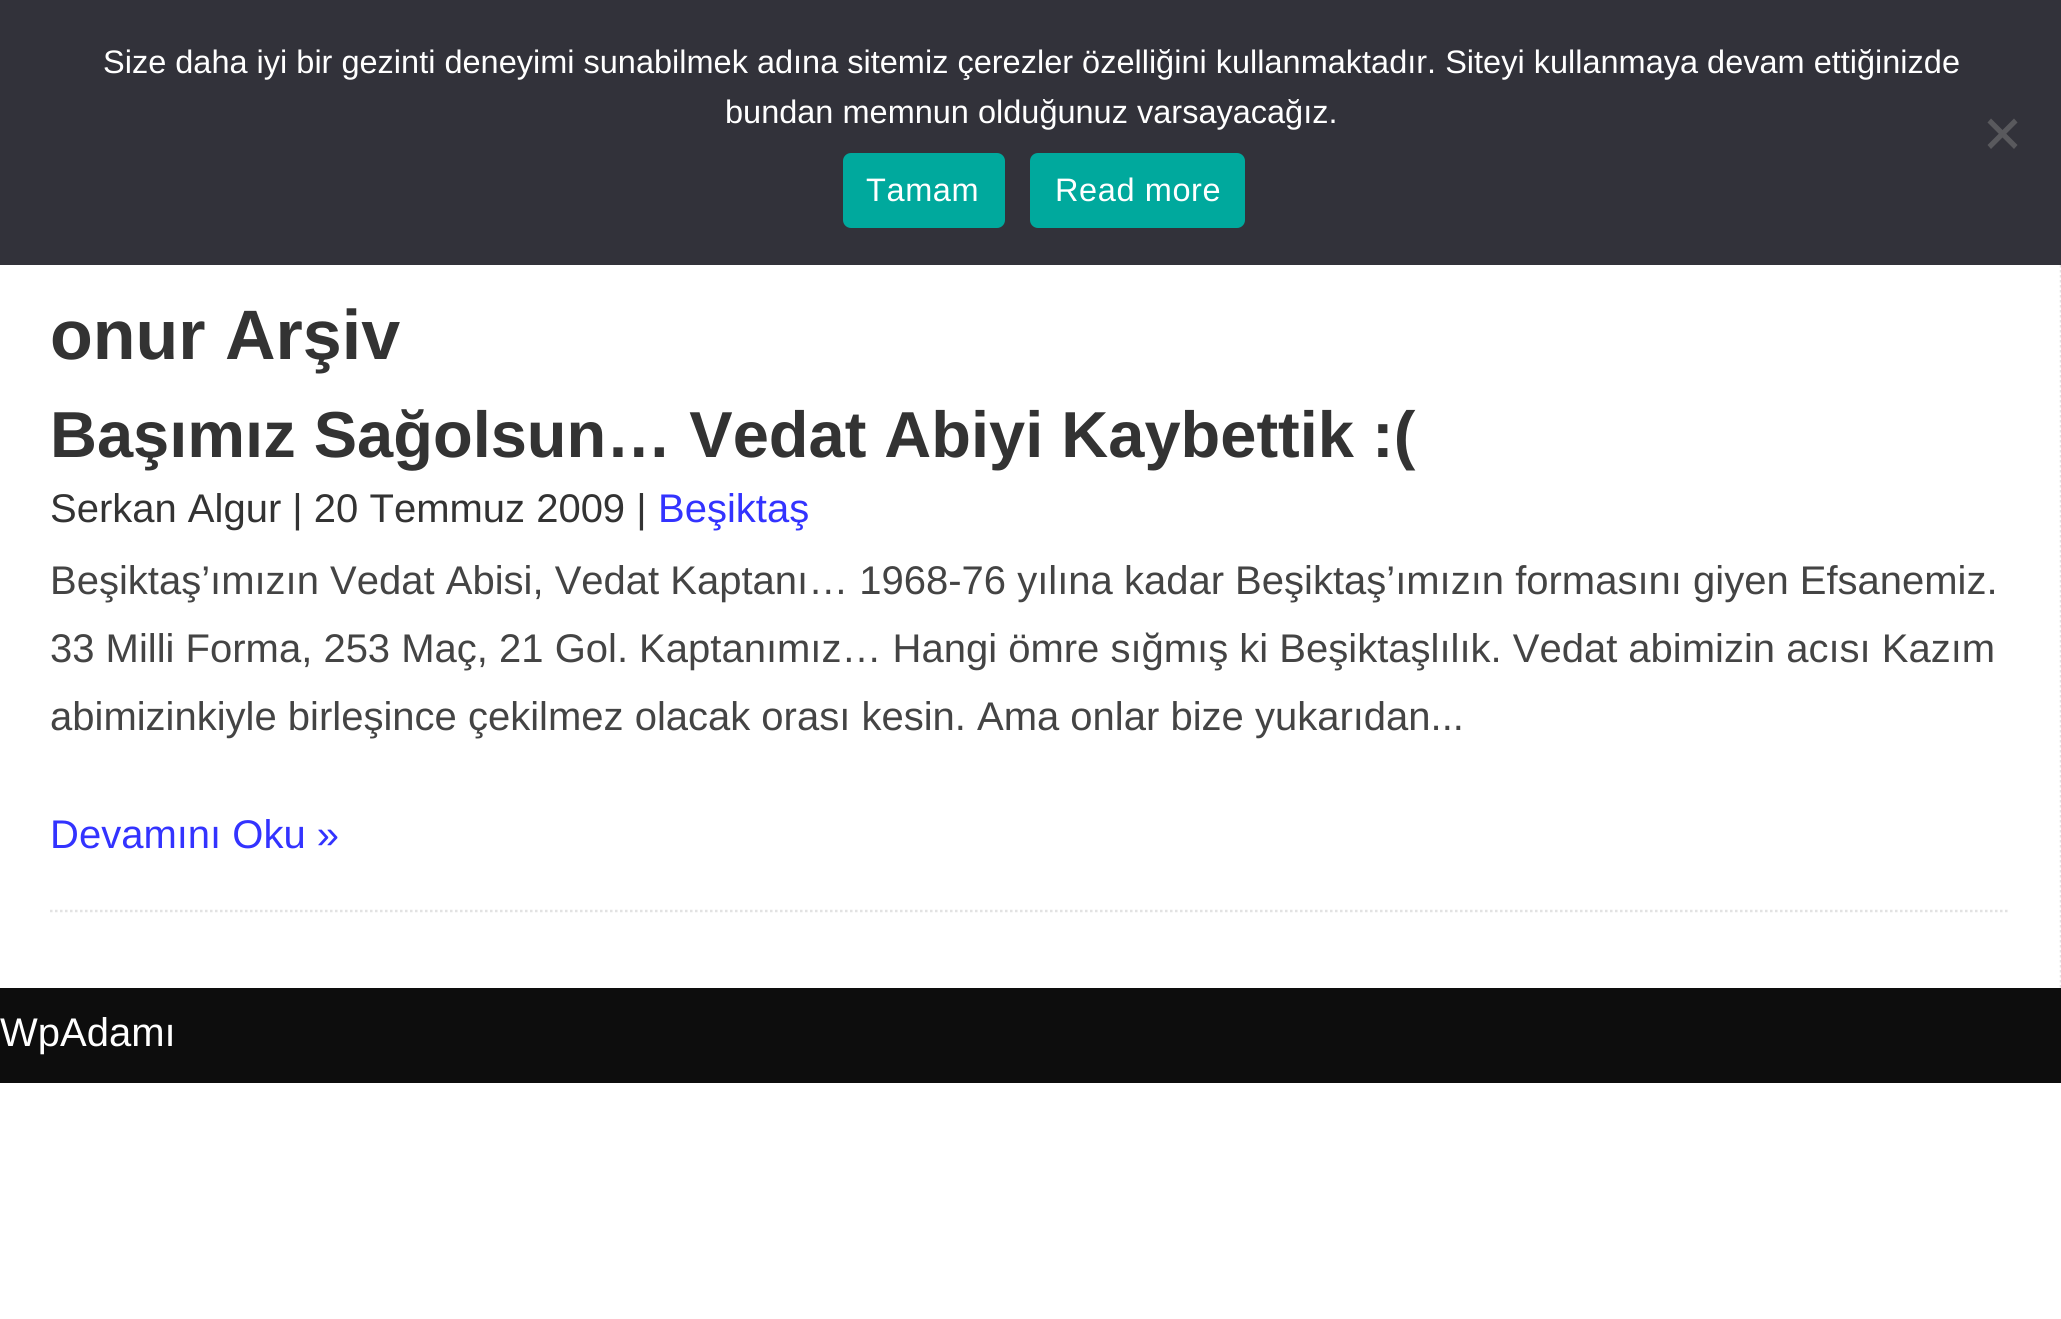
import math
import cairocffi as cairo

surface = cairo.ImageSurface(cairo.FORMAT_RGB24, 2061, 1319)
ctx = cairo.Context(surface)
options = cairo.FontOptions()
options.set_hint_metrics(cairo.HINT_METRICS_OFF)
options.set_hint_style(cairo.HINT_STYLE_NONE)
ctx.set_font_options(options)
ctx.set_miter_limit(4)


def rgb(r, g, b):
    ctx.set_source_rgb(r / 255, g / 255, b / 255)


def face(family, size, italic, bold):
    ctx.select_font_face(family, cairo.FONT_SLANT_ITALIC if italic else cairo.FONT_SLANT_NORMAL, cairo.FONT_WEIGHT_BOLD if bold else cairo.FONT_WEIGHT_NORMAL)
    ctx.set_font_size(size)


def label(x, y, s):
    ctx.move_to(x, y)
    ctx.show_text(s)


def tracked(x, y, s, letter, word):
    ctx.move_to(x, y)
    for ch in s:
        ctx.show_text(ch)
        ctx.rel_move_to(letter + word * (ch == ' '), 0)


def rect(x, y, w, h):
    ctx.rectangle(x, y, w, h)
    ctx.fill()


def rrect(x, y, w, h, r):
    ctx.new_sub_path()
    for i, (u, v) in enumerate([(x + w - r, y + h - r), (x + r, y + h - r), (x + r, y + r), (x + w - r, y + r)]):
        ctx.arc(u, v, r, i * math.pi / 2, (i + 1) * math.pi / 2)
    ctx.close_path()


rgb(255, 255, 255)
ctx.paint()
ctx.new_path()
ctx.move_to(2061, 200)
ctx.line_to(2061, 987.5)
rgb(226, 226, 226)
ctx.set_line_width(2.5)
ctx.set_dash([2.5, 2.5])
ctx.stroke()
rgb(50, 50, 58)
rect(0, 0, 2061, 265)
face('Liberation Sans', 32.5, 0, 0)
rgb(255, 255, 255)
label(103, 73, 'Size daha iyi bir gezinti deneyimi sunabilmek adına sitemiz çerezler özelliğini kullanmaktadır. Siteyi kullanmaya devam ettiğinizde')
label(725, 123, 'bundan memnun olduğunuz varsayacağız.')
rgb(89, 89, 93)
ctx.new_path()
ctx.move_to(2014, 118.5)
ctx.line_to(2017.5, 122.5)
ctx.line_to(1991, 149)
ctx.line_to(1987.5, 145)
ctx.close_path()
ctx.fill()
ctx.new_path()
ctx.move_to(1987.5, 122.5)
ctx.line_to(1991, 118.5)
ctx.line_to(2017.5, 145)
ctx.line_to(2014, 149)
ctx.close_path()
ctx.fill()
rgb(0, 169, 157)
rrect(843, 153, 162, 75, 8)
ctx.fill()
rgb(255, 255, 255)
tracked(866, 201, 'Tamam', 0.6, 0)
rgb(0, 169, 157)
rrect(1030, 153, 215, 75, 8)
ctx.fill()
rgb(255, 255, 255)
tracked(1055, 201, 'Read more', 0.6, 0)
face('Liberation Sans', 70, 0, 1)
rgb(51, 51, 51)
label(50, 359, 'onur Arşiv')
ctx.new_path()
ctx.move_to(50, 911)
ctx.line_to(2010, 911)
rgb(226, 226, 226)
ctx.stroke()
face('Liberation Sans', 65, 0, 1)
rgb(51, 51, 51)
label(50, 457, 'Başımız Sağolsun… Vedat Abiyi Kaybettik :(')
face('Liberation Sans', 40, 0, 0)
label(50, 522, 'Serkan Algur | 20 Temmuz 2009 |')
rgb(51, 51, 255)
label(658, 522, 'Beşiktaş')
rgb(68, 68, 68)
label(50, 594, 'Beşiktaş’ımızın Vedat Abisi, Vedat Kaptanı… 1968-76 yılına kadar Beşiktaş’ımızın formasını giyen Efsanemiz.')
label(50, 662, '33 Milli Forma, 253 Maç, 21 Gol. Kaptanımız… Hangi ömre sığmış ki Beşiktaşlılık. Vedat abimizin acısı Kazım')
label(50, 730, 'abimizinkiyle birleşince çekilmez olacak orası kesin. Ama onlar bize yukarıdan...')
rgb(51, 51, 255)
label(50, 848, 'Devamını Oku »')
rgb(13, 13, 13)
rect(0, 988, 2061, 95)
rgb(255, 255, 255)
label(0, 1046, 'WpAdamı')
surface.write_to_png('render.png')
